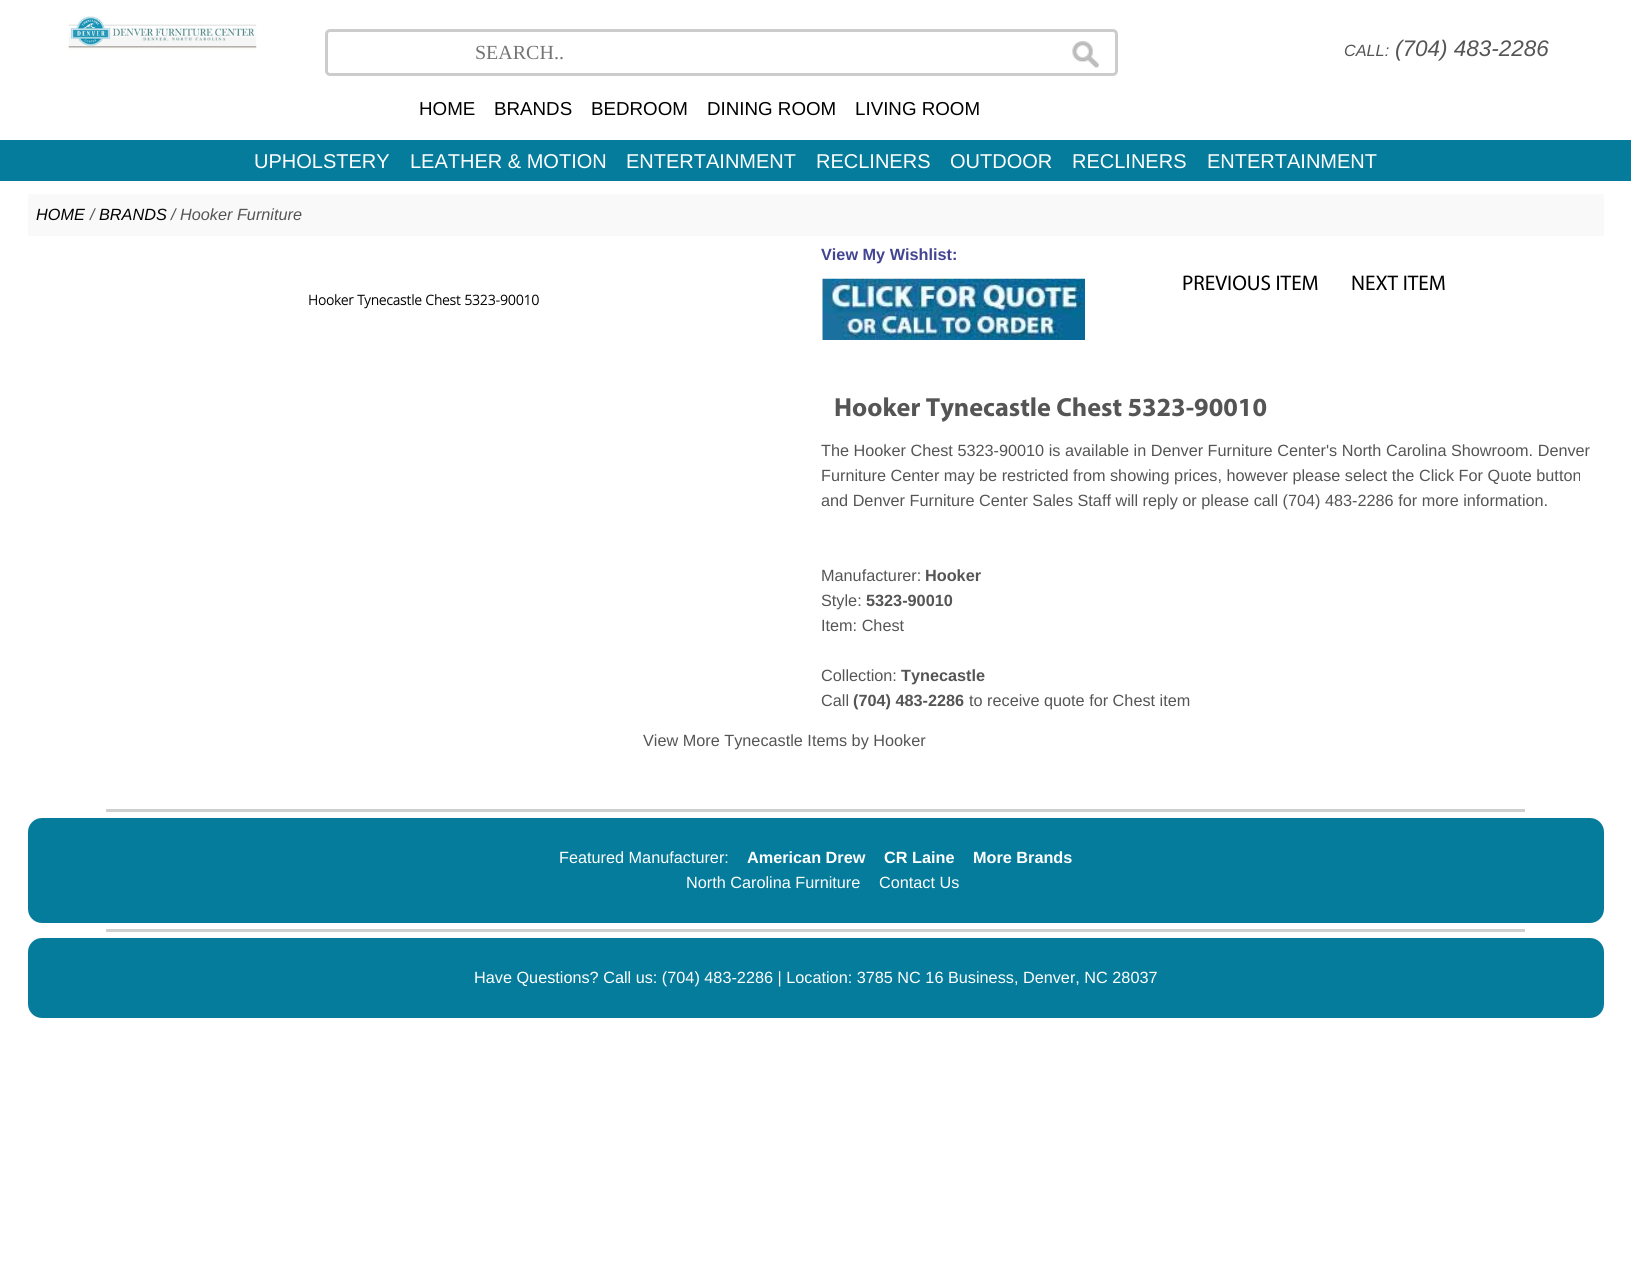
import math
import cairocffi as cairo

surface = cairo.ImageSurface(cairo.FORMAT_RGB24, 1631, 1264)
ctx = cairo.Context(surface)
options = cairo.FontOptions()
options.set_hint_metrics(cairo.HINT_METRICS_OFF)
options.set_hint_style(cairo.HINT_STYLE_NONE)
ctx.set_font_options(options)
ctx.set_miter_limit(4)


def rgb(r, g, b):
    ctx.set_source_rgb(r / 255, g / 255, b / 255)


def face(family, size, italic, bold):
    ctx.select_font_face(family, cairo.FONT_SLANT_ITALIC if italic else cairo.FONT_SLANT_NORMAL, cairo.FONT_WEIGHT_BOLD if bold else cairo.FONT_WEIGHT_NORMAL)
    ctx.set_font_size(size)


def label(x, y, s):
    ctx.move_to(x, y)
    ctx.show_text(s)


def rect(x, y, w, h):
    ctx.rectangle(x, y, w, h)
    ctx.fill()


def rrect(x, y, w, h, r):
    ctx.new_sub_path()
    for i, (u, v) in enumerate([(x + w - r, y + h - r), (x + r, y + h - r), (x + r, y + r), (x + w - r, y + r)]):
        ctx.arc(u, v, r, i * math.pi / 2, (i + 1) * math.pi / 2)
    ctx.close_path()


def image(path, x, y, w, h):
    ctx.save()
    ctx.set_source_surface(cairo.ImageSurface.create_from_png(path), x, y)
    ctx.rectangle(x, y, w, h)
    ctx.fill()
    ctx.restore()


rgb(255, 255, 255)
ctx.paint()
image('image0.png', 68, 16, 189, 35)
rrect(326.5, 30.5, 790, 44, 3.5)
rgb(204, 204, 204)
ctx.set_line_width(3)
ctx.stroke()
face('Liberation Serif', 20, 0, 0)
rgb(117, 117, 117)
label(475, 59, 'SEARCH..')
image('image1.png', 1072, 41, 27, 27)
face('Liberation Sans', 16.25, 1, 0)
rgb(85, 85, 85)
label(1344, 56, 'CALL:')
face('Liberation Sans', 22.5, 1, 0)
label(1395, 56, '(704) 483-2286')
face('Liberation Sans', 18.75, 0, 0)
rgb(0, 0, 0)
label(419, 115, 'HOME')
label(494, 115, 'BRANDS')
label(591, 115, 'BEDROOM')
label(707, 115, 'DINING ROOM')
label(855, 115, 'LIVING ROOM')
rgb(5, 124, 156)
rect(0, 140, 1631, 41)
face('Liberation Sans', 20, 0, 0)
rgb(255, 255, 255)
label(254, 168, 'UPHOLSTERY')
label(410, 168, 'LEATHER & MOTION')
label(626, 168, 'ENTERTAINMENT')
label(816, 168, 'RECLINERS')
label(950, 168, 'OUTDOOR')
label(1072, 168, 'RECLINERS')
label(1207, 168, 'ENTERTAINMENT')
rgb(249, 249, 249)
rect(28, 194, 1576, 42)
face('Liberation Sans', 16.25, 1, 0)
rgb(0, 0, 0)
label(36, 220, 'HOME')
rgb(85, 85, 85)
label(90, 220, '/')
rgb(0, 0, 0)
label(99, 220, 'BRANDS')
rgb(85, 85, 85)
label(171, 220, '/ Hooker Furniture')
face('Open Sans', 13.75, 0, 1)
rgb(0, 0, 0)
label(308, 305, 'Hooker Tynecastle Chest 5323-90010')
face('Liberation Sans', 16.25, 0, 1)
rgb(67, 69, 147)
label(821, 260, 'View My Wishlist:')
image('image2.png', 822, 278, 263, 62)
face('Myriad', 21.25, 0, 0)
rgb(0, 0, 0)
label(1182, 290, 'PREVIOUS ITEM')
label(1351, 290, 'NEXT ITEM')
face('Myriad', 26.25, 0, 1)
rgb(85, 85, 85)
label(834, 416, 'Hooker Tynecastle Chest 5323-90010')
face('Liberation Sans', 16.25, 0, 0)
label(821, 456, 'The Hooker Chest 5323-90010 is available in Denver Furniture Center\'s North Carolina Showroom. Denver')
label(821, 481, 'Furniture Center may be restricted from showing prices, however please select the Click For Quote button')
label(821, 506, 'and Denver Furniture Center Sales Staff will reply or please call (704) 483-2286 for more information.')
label(821, 581, 'Manufacturer:')
face('Liberation Sans', 16.25, 0, 1)
label(925, 581, 'Hooker')
face('Liberation Sans', 16.25, 0, 0)
label(821, 606, 'Style:')
face('Liberation Sans', 16.25, 0, 1)
label(866, 606, '5323-90010')
face('Liberation Sans', 16.25, 0, 0)
label(821, 631, 'Item: Chest')
label(821, 681, 'Collection:')
face('Liberation Sans', 16.25, 0, 1)
label(901, 681, 'Tynecastle')
face('Liberation Sans', 16.25, 0, 0)
label(821, 706, 'Call')
face('Liberation Sans', 16.25, 0, 1)
label(853, 706, '(704) 483-2286')
face('Liberation Sans', 16.25, 0, 0)
label(969, 706, 'to receive quote for Chest item')
label(643, 746, 'View More Tynecastle Items by Hooker')
rgb(206, 208, 207)
rect(106, 809, 1419, 3)
rgb(5, 124, 156)
rrect(28, 818, 1576, 105, 14)
ctx.fill()
rgb(255, 255, 255)
label(559, 863, 'Featured Manufacturer:')
face('Liberation Sans', 16.25, 0, 1)
label(747, 863, 'American Drew')
label(884, 863, 'CR Laine')
label(973, 863, 'More Brands')
face('Liberation Sans', 16.25, 0, 0)
label(686, 888, 'North Carolina Furniture')
label(879, 888, 'Contact Us')
rgb(206, 208, 207)
rect(106, 929, 1419, 3)
rgb(5, 124, 156)
rrect(28, 938, 1576, 80, 14)
ctx.fill()
rgb(255, 255, 255)
label(474, 983, 'Have Questions? Call us: (704) 483-2286 | Location: 3785 NC 16 Business, Denver, NC 28037')
surface.write_to_png('render.png')
